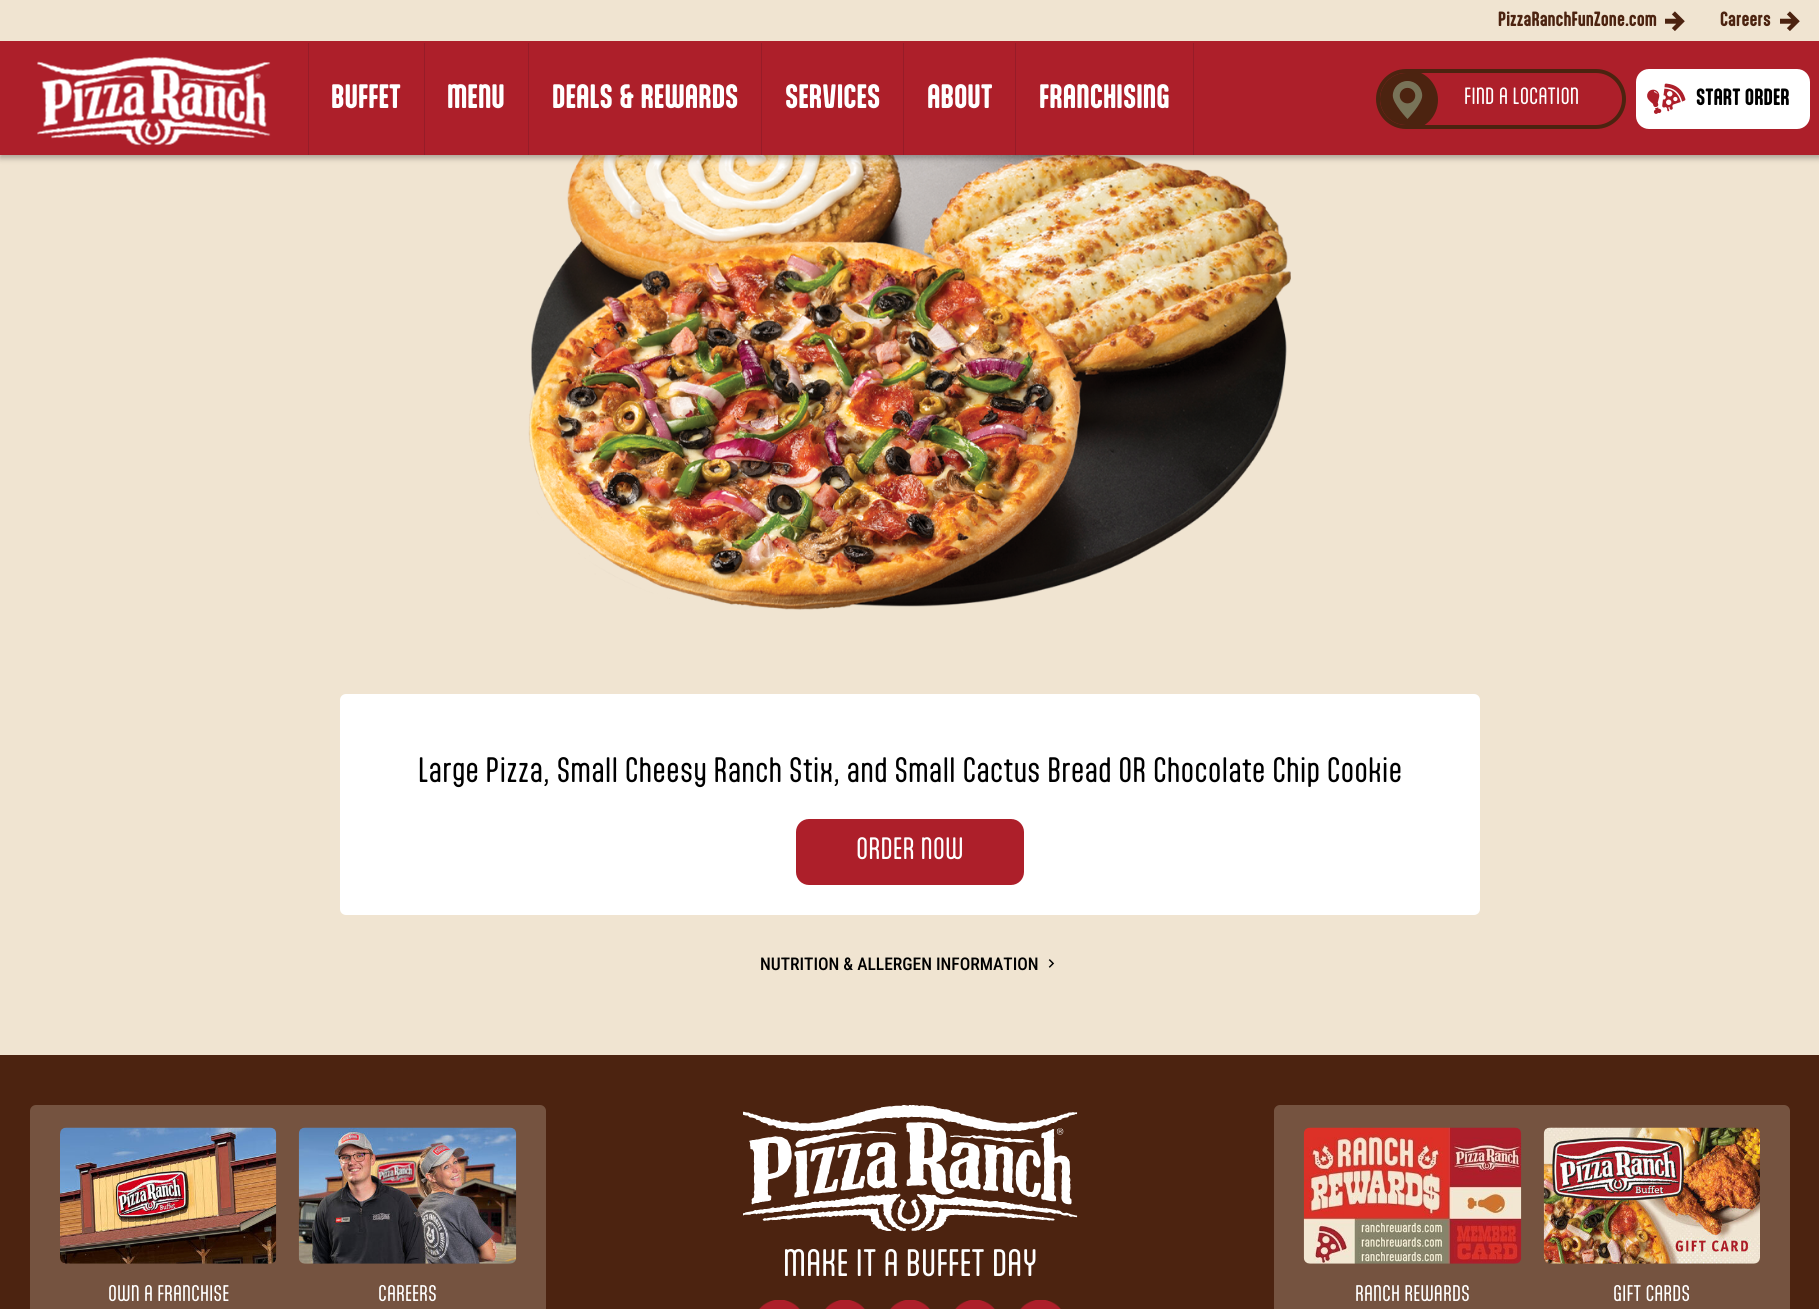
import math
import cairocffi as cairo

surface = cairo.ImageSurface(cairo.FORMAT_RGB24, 1819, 1309)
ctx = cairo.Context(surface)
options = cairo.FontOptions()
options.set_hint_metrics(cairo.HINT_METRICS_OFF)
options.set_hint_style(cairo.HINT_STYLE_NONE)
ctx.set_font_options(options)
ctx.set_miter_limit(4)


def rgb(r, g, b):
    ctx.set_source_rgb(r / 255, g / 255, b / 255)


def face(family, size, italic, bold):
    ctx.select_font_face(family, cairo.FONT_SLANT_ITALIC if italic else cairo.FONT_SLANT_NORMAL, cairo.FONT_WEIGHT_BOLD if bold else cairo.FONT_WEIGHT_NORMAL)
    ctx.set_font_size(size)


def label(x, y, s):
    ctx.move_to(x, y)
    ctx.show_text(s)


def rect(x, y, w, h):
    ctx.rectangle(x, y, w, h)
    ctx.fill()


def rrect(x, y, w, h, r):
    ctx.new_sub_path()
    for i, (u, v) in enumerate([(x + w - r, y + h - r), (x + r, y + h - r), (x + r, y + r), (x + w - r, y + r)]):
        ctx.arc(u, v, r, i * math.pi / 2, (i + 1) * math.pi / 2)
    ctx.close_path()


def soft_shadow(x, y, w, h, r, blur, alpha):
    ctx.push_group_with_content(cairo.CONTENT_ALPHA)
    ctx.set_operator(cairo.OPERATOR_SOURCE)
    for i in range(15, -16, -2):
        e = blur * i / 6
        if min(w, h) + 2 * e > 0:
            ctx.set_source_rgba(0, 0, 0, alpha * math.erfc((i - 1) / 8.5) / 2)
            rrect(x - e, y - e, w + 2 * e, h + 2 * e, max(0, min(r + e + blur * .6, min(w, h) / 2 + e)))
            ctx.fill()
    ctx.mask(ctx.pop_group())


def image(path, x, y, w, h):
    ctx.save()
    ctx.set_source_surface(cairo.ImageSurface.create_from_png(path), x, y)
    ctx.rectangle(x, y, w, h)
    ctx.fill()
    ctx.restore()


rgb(240, 228, 209)
ctx.paint()
image('image4.png', 528, 155, 763, 455)
rgb(0, 0, 0)
soft_shadow(0, 3, 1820, 155, 0, 3, 0.3)
rgb(173, 31, 42)
rect(0, 41, 1819, 114)
rgb(240, 228, 209)
rect(0, 0, 1819, 41)
face('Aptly', 17.5, 0, 1)
rgb(76, 35, 16)
label(1498, 26, 'PizzaRanchFunZone.com')
image('image0.png', 1665, 11, 20, 20)
label(1720, 26, 'Careers')
image('image0.png', 1780, 11, 20, 20)
image('image1.png', 37, 57, 234, 89)
rgb(150, 28, 40)
rect(308, 43, 1, 112)
face('Aptly', 28.75, 0, 1)
rgb(255, 255, 255)
label(331, 108, 'BUFFET')
rgb(150, 28, 40)
rect(424, 43, 1, 112)
rgb(255, 255, 255)
label(447, 108, 'MENU')
rgb(150, 28, 40)
rect(528, 43, 1, 112)
rgb(255, 255, 255)
label(552, 108, 'DEALS & REWARDS')
rgb(150, 28, 40)
rect(761, 43, 1, 112)
rgb(255, 255, 255)
label(785, 108, 'SERVICES')
rgb(150, 28, 40)
rect(903, 43, 1, 112)
rgb(255, 255, 255)
label(927, 108, 'ABOUT')
rgb(150, 28, 40)
rect(1193, 43, 1, 112)
rect(1015, 43, 1, 112)
rgb(255, 255, 255)
label(1039, 108, 'FRANCHISING')
rrect(1378, 71, 246, 56, 28)
rgb(76, 35, 16)
ctx.set_line_width(4)
ctx.stroke()
ctx.save()
rrect(1380, 73, 243, 52, 26)
ctx.clip()
ctx.arc(1408, 100, 30, 0, 2 * math.pi)
ctx.fill()
ctx.restore()
image('image2.png', 1392, 81, 31, 38)
face('Aptly', 20, 0, 0)
rgb(255, 255, 255)
label(1464, 104, 'FIND A LOCATION')
rrect(1636, 69, 174, 60, 13)
ctx.fill()
image('image3.png', 1647, 83, 39, 31)
face('Aptly', 20, 0, 1)
rgb(0, 0, 0)
label(1696, 105, 'START ORDER')
rgb(255, 255, 255)
rrect(340, 694, 1140, 221, 6)
ctx.fill()
face('Aptly', 30, 0, 0)
rgb(0, 0, 0)
label(418, 782, 'Large Pizza, Small Cheesy Ranch Stix, and Small Cactus Bread OR Chocolate Chip Cookie')
rgb(173, 31, 42)
rrect(796, 819, 228, 66, 13)
ctx.fill()
face('Aptly', 26.25, 0, 0)
rgb(255, 255, 255)
label(856, 859, 'ORDER NOW')
face('Roboto Condensed Medium', 17.5, 0, 0)
rgb(0, 0, 0)
label(760, 970, 'NUTRITION & ALLERGEN INFORMATION')
image('image5.png', 1048, 959, 7, 9)
rgb(76, 35, 16)
rect(0, 1055, 1819, 254)
image('image6.png', 743, 1105, 335, 126)
face('Aptly', 32.5, 0, 0)
rgb(255, 255, 255)
label(783, 1276, 'MAKE IT A BUFFET DAY')
image('image7.png', 759, 1300, 41, 9)
image('image8.png', 825, 1300, 40, 9)
image('image8.png', 890, 1300, 40, 9)
image('image9.png', 955, 1300, 40, 9)
image('image10.png', 1020, 1300, 41, 9)
rgb(117, 83, 64)
rrect(30, 1105, 516, 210, 6)
ctx.fill()
image('image11.png', 60, 1127, 217, 137)
face('Aptly', 19.25, 0, 0)
rgb(255, 255, 255)
label(108, 1301, 'OWN A FRANCHISE')
image('image12.png', 298, 1127, 219, 137)
label(378, 1301, 'CAREERS')
rgb(117, 83, 64)
rrect(1274, 1105, 516, 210, 6)
ctx.fill()
image('image13.png', 1303, 1127, 219, 137)
rgb(255, 255, 255)
label(1355, 1301, 'RANCH REWARDS')
image('image14.png', 1543, 1127, 217, 137)
label(1613, 1301, 'GIFT CARDS')
surface.write_to_png('render.png')
